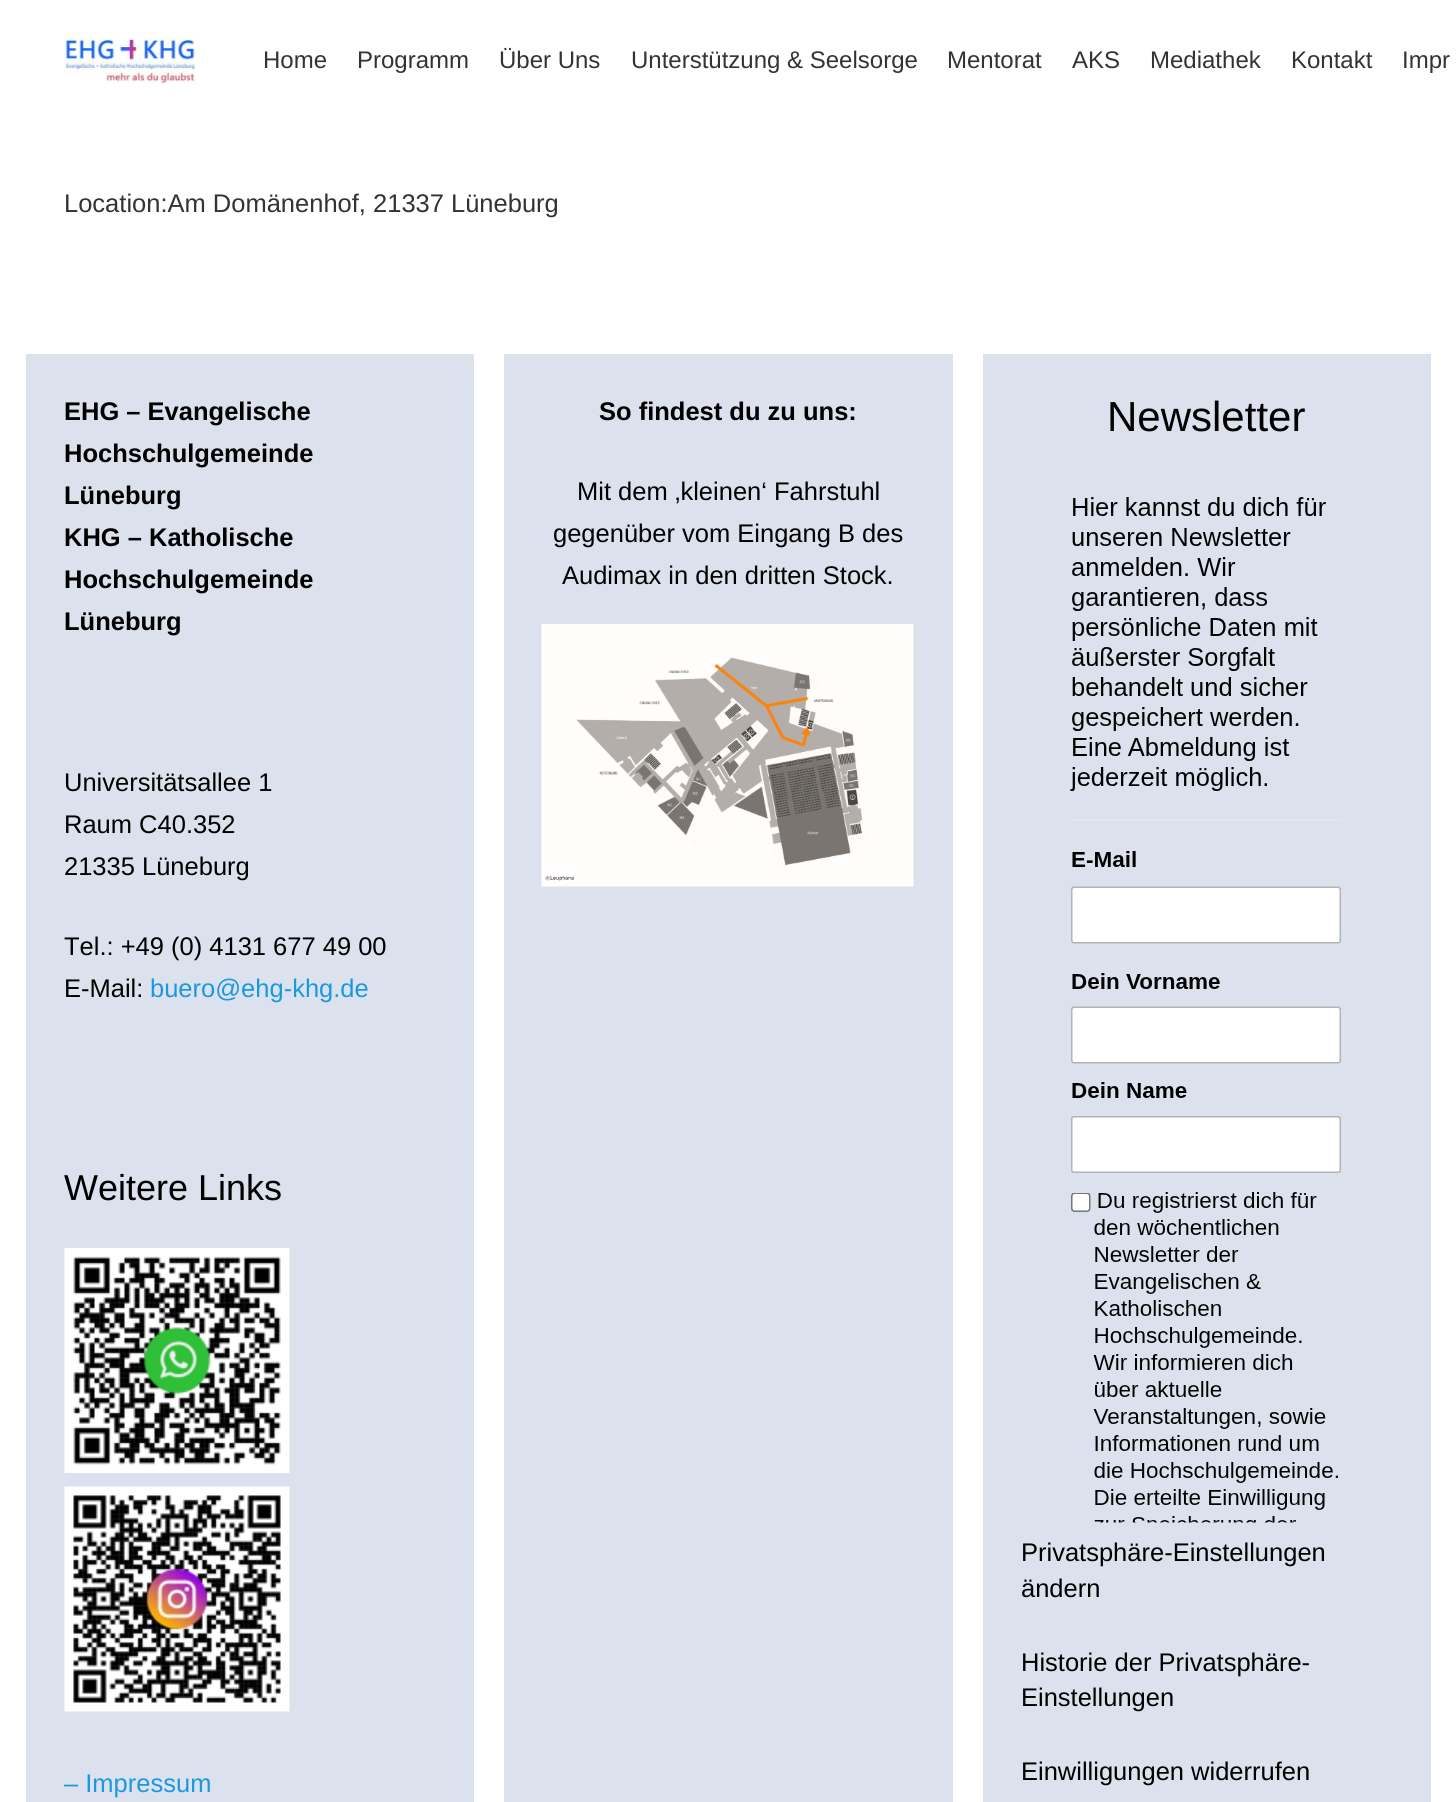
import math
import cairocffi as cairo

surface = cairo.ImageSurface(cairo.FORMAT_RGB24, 1456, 1802)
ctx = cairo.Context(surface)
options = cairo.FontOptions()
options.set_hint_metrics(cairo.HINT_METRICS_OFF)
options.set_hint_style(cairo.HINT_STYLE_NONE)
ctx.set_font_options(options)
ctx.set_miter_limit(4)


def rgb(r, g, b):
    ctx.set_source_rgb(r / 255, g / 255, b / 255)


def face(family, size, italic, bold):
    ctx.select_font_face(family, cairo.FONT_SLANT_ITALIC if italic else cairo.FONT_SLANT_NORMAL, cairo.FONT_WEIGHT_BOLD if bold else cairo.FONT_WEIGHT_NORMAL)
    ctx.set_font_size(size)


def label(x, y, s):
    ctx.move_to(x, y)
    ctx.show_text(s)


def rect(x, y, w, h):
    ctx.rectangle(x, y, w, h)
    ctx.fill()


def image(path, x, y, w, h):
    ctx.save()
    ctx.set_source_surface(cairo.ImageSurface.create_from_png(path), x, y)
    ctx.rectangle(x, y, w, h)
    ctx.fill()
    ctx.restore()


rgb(255, 255, 255)
ctx.paint()
image('image0.png', 64, 37, 131, 46)
face('Liberation Sans', 24, 0, 0)
rgb(51, 51, 51)
label(263, 68, 'Home')
label(357, 68, 'Programm')
label(499, 68, 'Über Uns')
label(631, 68, 'Unterstützung & Seelsorge')
label(947, 68, 'Mentorat')
label(1072, 68, 'AKS')
label(1150, 68, 'Mediathek')
label(1291, 68, 'Kontakt')
label(1402, 68, 'Impr')
face('Liberation Sans', 25.5, 0, 0)
label(64, 212, 'Location:Am Domänenhof, 21337 Lüneburg')
rgb(220, 226, 237)
rect(26, 354, 448, 1448)
face('Liberation Sans', 25.5, 0, 1)
rgb(0, 0, 0)
label(64, 420, 'EHG – Evangelische')
label(64, 462, 'Hochschulgemeinde')
label(64, 504, 'Lüneburg')
label(64, 546, 'KHG – Katholische')
label(64, 588, 'Hochschulgemeinde')
label(64, 630, 'Lüneburg')
face('Liberation Sans', 25.5, 0, 0)
label(64, 791, 'Universitätsallee 1')
label(64, 833, 'Raum C40.352')
label(64, 875, '21335 Lüneburg')
label(64, 955, 'Tel.: +49 (0) 4131 677 49 00')
label(64, 997, 'E-Mail:')
rgb(27, 152, 224)
label(150, 997, 'buero@ehg-khg.de')
face('Liberation Sans', 36, 0, 0)
rgb(0, 0, 0)
label(64, 1200, 'Weitere Links')
image('image1.png', 64, 1248, 226, 225)
image('image2.png', 64, 1486, 226, 226)
face('Liberation Sans', 25.5, 0, 0)
rgb(27, 152, 224)
label(64, 1792, '– Impressum')
rgb(220, 226, 237)
rect(504, 354, 449, 1448)
face('Liberation Sans', 25.5, 0, 1)
rgb(0, 0, 0)
label(599, 420, 'So findest du zu uns:')
face('Liberation Sans', 25.5, 0, 0)
label(577, 500, 'Mit dem ‚kleinen‘ Fahrstuhl')
label(553, 542, 'gegenüber vom Eingang B des')
label(562, 584, 'Audimax in den dritten Stock.')
image('image3.png', 541, 624, 373, 263)
rgb(220, 226, 237)
rect(983, 354, 448, 1448)
face('Liberation Sans', 42, 0, 0)
rgb(0, 0, 0)
label(1107, 431, 'Newsletter')
image('image4.png', 1070, 497, 271, 1026)
face('Liberation Sans', 25.5, 0, 0)
label(1021, 1561, 'Privatsphäre-Einstellungen')
label(1021, 1597, 'ändern')
label(1021, 1671, 'Historie der Privatsphäre-')
label(1021, 1706, 'Einstellungen')
label(1021, 1780, 'Einwilligungen widerrufen')
surface.write_to_png('render.png')
